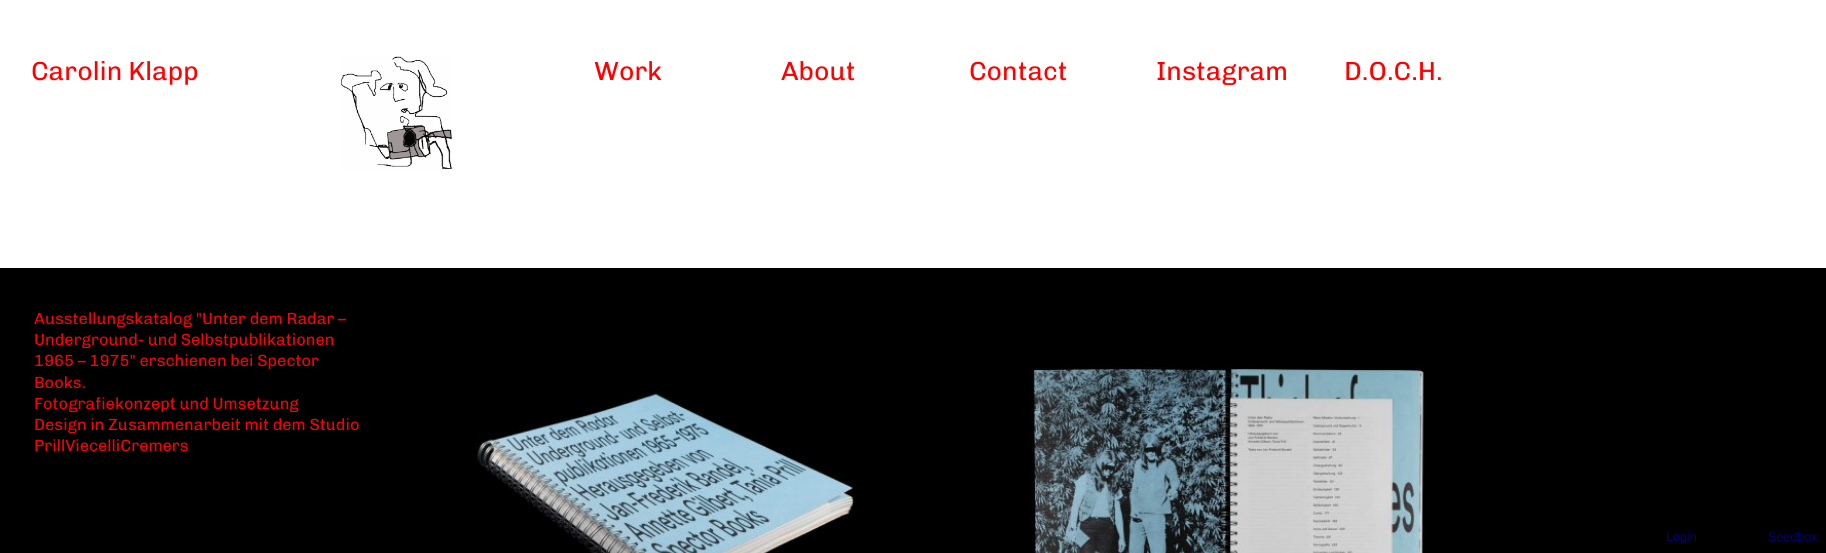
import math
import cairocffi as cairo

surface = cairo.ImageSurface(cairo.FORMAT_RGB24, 1826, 553)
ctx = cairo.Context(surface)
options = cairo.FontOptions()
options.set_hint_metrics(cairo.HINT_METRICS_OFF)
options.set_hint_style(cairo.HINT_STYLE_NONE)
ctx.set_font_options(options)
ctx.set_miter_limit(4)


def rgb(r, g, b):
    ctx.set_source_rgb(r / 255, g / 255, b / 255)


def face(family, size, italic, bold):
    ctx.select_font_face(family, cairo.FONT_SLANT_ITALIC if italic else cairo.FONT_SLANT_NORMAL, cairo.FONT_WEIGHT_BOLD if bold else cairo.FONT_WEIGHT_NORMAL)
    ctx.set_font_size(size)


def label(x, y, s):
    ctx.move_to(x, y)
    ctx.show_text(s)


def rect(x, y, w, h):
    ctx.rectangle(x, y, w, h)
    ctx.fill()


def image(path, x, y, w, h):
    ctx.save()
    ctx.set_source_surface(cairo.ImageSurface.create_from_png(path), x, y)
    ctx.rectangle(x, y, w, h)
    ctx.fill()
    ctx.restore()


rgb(0, 0, 0)
ctx.paint()
rgb(255, 255, 255)
rect(0, 0, 1826, 268)
face('Chivo', 26.25, 0, 0)
rgb(255, 0, 0)
label(31, 80, 'Carolin Klapp')
image('image0.png', 341, 56, 111, 114)
label(594, 80, 'Work')
label(781, 80, 'About')
label(969, 80, 'Contact')
label(1156, 80, 'Instagram')
label(1344, 80, 'D.O.C.H.')
face('Chivo', 16.25, 0, 0)
rgb(244, 5, 5)
label(34, 324, 'Ausstellungskatalog "Unter dem Radar –')
label(34, 345, 'Underground- und Selbstpublikationen')
label(34, 366, '1965 – 1975" erschienen bei Spector')
label(34, 388, 'Books.')
label(34, 409, 'Fotografiekonzept und Umsetzung')
label(34, 430, 'Design in Zusammenarbeit mit dem Studio')
label(34, 451, 'PrillViecelliCremers')
image('image1.png', 475, 392, 380, 161)
image('image2.png', 1029, 367, 400, 186)
face('Liberation Sans', 12.5, 0, 0)
rgb(0, 0, 128)
label(1666, 541, 'Login')
label(1768, 541, 'Seedbox')
surface.write_to_png('render.png')
